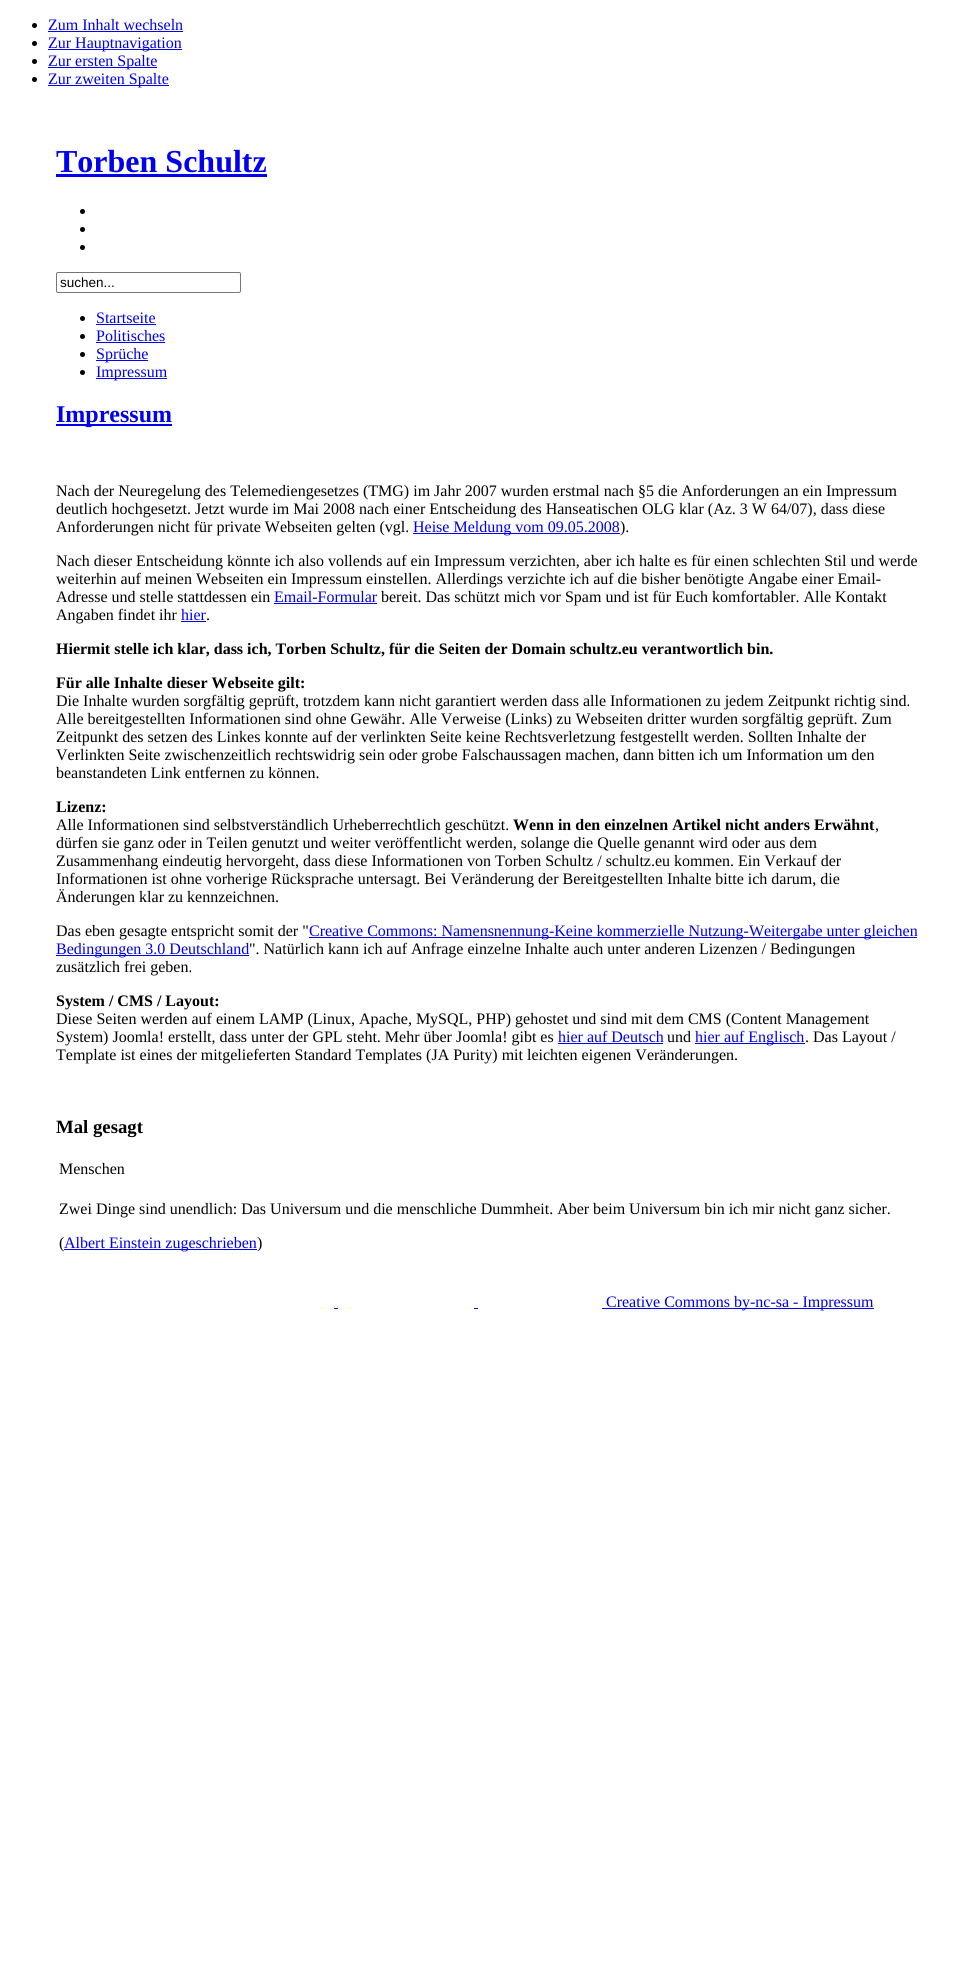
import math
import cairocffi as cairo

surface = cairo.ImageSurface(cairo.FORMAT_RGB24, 975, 1982)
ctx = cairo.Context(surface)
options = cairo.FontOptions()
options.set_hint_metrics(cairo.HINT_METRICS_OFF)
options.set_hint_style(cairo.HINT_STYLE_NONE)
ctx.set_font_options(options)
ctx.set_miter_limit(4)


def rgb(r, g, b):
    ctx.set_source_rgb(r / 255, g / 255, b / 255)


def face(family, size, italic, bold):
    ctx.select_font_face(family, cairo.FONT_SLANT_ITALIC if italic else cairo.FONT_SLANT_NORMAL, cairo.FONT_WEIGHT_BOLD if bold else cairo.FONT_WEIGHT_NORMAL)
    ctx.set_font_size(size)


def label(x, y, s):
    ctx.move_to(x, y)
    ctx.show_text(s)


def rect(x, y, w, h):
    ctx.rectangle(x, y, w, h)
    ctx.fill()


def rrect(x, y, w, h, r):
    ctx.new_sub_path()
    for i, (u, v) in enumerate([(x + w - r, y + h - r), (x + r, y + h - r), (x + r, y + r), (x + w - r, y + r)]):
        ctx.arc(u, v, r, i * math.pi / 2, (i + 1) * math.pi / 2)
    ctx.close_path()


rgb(255, 255, 255)
ctx.paint()
rgb(0, 0, 0)
ctx.arc(34.5, 25.5, 2.5, 0, 2 * math.pi)
ctx.fill()
face('Liberation Serif', 16, 0, 0)
rgb(0, 0, 238)
label(48, 30, 'Zum Inhalt wechseln')
rect(48, 31, 135, 1)
rgb(0, 0, 0)
ctx.new_path()
ctx.arc(34.5, 43.5, 2.5, 0, 2 * math.pi)
ctx.fill()
rgb(0, 0, 238)
rect(48, 49, 134, 1)
label(48, 48, 'Zur Hauptnavigation')
rgb(0, 0, 0)
ctx.new_path()
ctx.arc(34.5, 61.5, 2.5, 0, 2 * math.pi)
ctx.fill()
rgb(0, 0, 238)
rect(48, 67, 109, 1)
label(48, 66, 'Zur ersten Spalte')
rgb(0, 0, 0)
ctx.new_path()
ctx.arc(34.5, 79.5, 2.5, 0, 2 * math.pi)
ctx.fill()
rgb(0, 0, 238)
rect(48, 85, 121, 1)
label(48, 84, 'Zur zweiten Spalte')
face('Liberation Serif', 32, 0, 1)
label(56, 172, 'Torben Schultz')
rect(56, 174, 211, 3)
rgb(0, 0, 0)
ctx.new_path()
ctx.arc(82.5, 211.5, 2.5, 0, 2 * math.pi)
ctx.fill()
ctx.arc(82.5, 229.5, 2.5, 0, 2 * math.pi)
ctx.fill()
ctx.arc(82.5, 247.5, 2.5, 0, 2 * math.pi)
ctx.fill()
rrect(56.5, 272.5, 184, 20, 1.5)
rgb(118, 118, 118)
ctx.set_line_width(1)
ctx.stroke()
face('Liberation Sans', 13.5, 0, 0)
rgb(0, 0, 0)
label(60, 287, 'suchen...')
ctx.new_path()
ctx.arc(82.5, 318.5, 2.5, 0, 2 * math.pi)
ctx.fill()
face('Liberation Serif', 16, 0, 0)
rgb(0, 0, 238)
label(96, 323, 'Startseite')
rect(96, 324, 60, 1)
rgb(0, 0, 0)
ctx.new_path()
ctx.arc(82.5, 336.5, 2.5, 0, 2 * math.pi)
ctx.fill()
rgb(0, 0, 238)
label(96, 341, 'Politisches')
rect(96, 342, 69, 1)
rgb(0, 0, 0)
ctx.new_path()
ctx.arc(82.5, 354.5, 2.5, 0, 2 * math.pi)
ctx.fill()
rgb(0, 0, 238)
rect(96, 360, 52, 1)
label(96, 359, 'Sprüche')
rgb(0, 0, 0)
ctx.new_path()
ctx.arc(82.5, 372.5, 2.5, 0, 2 * math.pi)
ctx.fill()
rgb(0, 0, 238)
rect(96, 378, 71, 1)
label(96, 377, 'Impressum')
rect(56, 424, 116, 2)
face('Liberation Serif', 24, 0, 1)
label(56, 422, 'Impressum')
face('Liberation Serif', 16, 0, 0)
rgb(0, 0, 0)
label(56, 496, 'Nach der Neuregelung des Telemediengesetzes (TMG) im Jahr 2007 wurden erstmal nach §5 die Anforderungen an ein Impressum')
label(56, 514, 'deutlich hochgesetzt. Jetzt wurde im Mai 2008 nach einer Entscheidung des Hanseatischen OLG klar (Az. 3 W 64/07), dass diese')
label(56, 532, 'Anforderungen nicht für private Webseiten gelten (vgl.')
rgb(0, 0, 238)
rect(413, 533, 207, 1)
label(413, 532, 'Heise Meldung vom 09.05.2008')
rgb(0, 0, 0)
label(620, 532, ').')
label(56, 566, 'Nach dieser Entscheidung könnte ich also vollends auf ein Impressum verzichten, aber ich halte es für einen schlechten Stil und werde')
label(56, 584, 'weiterhin auf meinen Webseiten ein Impressum einstellen. Allerdings verzichte ich auf die bisher benötigte Angabe einer Email-')
label(56, 602, 'Adresse und stelle stattdessen ein')
rgb(0, 0, 238)
label(274, 602, 'Email-Formular')
rect(274, 603, 103, 1)
rgb(0, 0, 0)
label(381, 602, 'bereit. Das schützt mich vor Spam und ist für Euch komfortabler. Alle Kontakt')
label(56, 620, 'Angaben findet ihr')
rgb(0, 0, 238)
label(181, 620, 'hier')
rect(181, 621, 25, 1)
rgb(0, 0, 0)
label(206, 620, '.')
face('Liberation Serif', 16, 0, 1)
label(56, 654, 'Hiermit stelle ich klar, dass ich, Torben Schultz, für die Seiten der Domain schultz.eu verantwortlich bin.')
label(56, 688, 'Für alle Inhalte dieser Webseite gilt:')
face('Liberation Serif', 16, 0, 0)
label(56, 706, 'Die Inhalte wurden sorgfältig geprüft, trotzdem kann nicht garantiert werden dass alle Informationen zu jedem Zeitpunkt richtig sind.')
label(56, 724, 'Alle bereitgestellten Informationen sind ohne Gewähr. Alle Verweise (Links) zu Webseiten dritter wurden sorgfältig geprüft. Zum')
label(56, 742, 'Zeitpunkt des setzen des Linkes konnte auf der verlinkten Seite keine Rechtsverletzung festgestellt werden. Sollten Inhalte der')
label(56, 760, 'Verlinkten Seite zwischenzeitlich rechtswidrig sein oder grobe Falschaussagen machen, dann bitten ich um Information um den')
label(56, 778, 'beanstandeten Link entfernen zu können.')
face('Liberation Serif', 16, 0, 1)
label(56, 812, 'Lizenz:')
face('Liberation Serif', 16, 0, 0)
label(56, 830, 'Alle Informationen sind selbstverständlich Urheberrechtlich geschützt.')
face('Liberation Serif', 16, 0, 1)
label(513, 830, 'Wenn in den einzelnen Artikel nicht anders Erwähnt')
face('Liberation Serif', 16, 0, 0)
label(875, 830, ',')
label(56, 848, 'dürfen sie ganz oder in Teilen genutzt und weiter veröffentlicht werden, solange die Quelle genannt wird oder aus dem')
label(56, 866, 'Zusammenhang eindeutig hervorgeht, dass diese Informationen von Torben Schultz / schultz.eu kommen. Ein Verkauf der')
label(56, 884, 'Informationen ist ohne vorherige Rücksprache untersagt. Bei Veränderung der Bereitgestellten Inhalte bitte ich darum, die')
label(56, 902, 'Änderungen klar zu kennzeichnen.')
label(56, 936, 'Das eben gesagte entspricht somit der "')
rgb(0, 0, 238)
rect(309, 937, 608, 1)
label(309, 936, 'Creative Commons: Namensnennung-Keine kommerzielle Nutzung-Weitergabe unter gleichen')
rect(56, 955, 193, 1)
label(56, 954, 'Bedingungen 3.0 Deutschland')
rgb(0, 0, 0)
label(249, 954, '". Natürlich kann ich auf Anfrage einzelne Inhalte auch unter anderen Lizenzen / Bedingungen')
label(56, 972, 'zusätzlich frei geben.')
face('Liberation Serif', 16, 0, 1)
label(56, 1006, 'System / CMS / Layout:')
face('Liberation Serif', 16, 0, 0)
label(56, 1024, 'Diese Seiten werden auf einem LAMP (Linux, Apache, MySQL, PHP) gehostet und sind mit dem CMS (Content Management')
label(56, 1042, 'System) Joomla! erstellt, dass unter der GPL steht. Mehr über Joomla! gibt es')
rgb(0, 0, 238)
label(558, 1042, 'hier auf Deutsch')
rect(558, 1043, 105, 1)
rgb(0, 0, 0)
label(667, 1042, 'und')
rgb(0, 0, 238)
rect(695, 1043, 110, 1)
label(695, 1042, 'hier auf Englisch')
rgb(0, 0, 0)
label(805, 1042, '. Das Layout /')
label(56, 1060, 'Template ist eines der mitgelieferten Standard Templates (JA Purity) mit leichten eigenen Veränderungen.')
face('Liberation Serif', 18.75, 0, 1)
label(56, 1133, 'Mal gesagt')
face('Liberation Serif', 16, 0, 0)
label(59, 1174, 'Menschen')
label(59, 1214, 'Zwei Dinge sind unendlich: Das Universum und die menschliche Dummheit. Aber beim Universum bin ich mir nicht ganz sicher.')
label(59, 1248, '(')
rgb(0, 0, 238)
rect(64, 1249, 193, 1)
label(64, 1248, 'Albert Einstein zugeschrieben')
rgb(0, 0, 0)
label(257, 1248, ')')
rgb(0, 0, 238)
rect(602, 1308, 272, 1)
label(606, 1307, 'Creative Commons by-nc-sa - Impressum')
rect(334, 1308, 4, 1)
rect(474, 1308, 4, 1)
surface.write_to_png('render.png')
